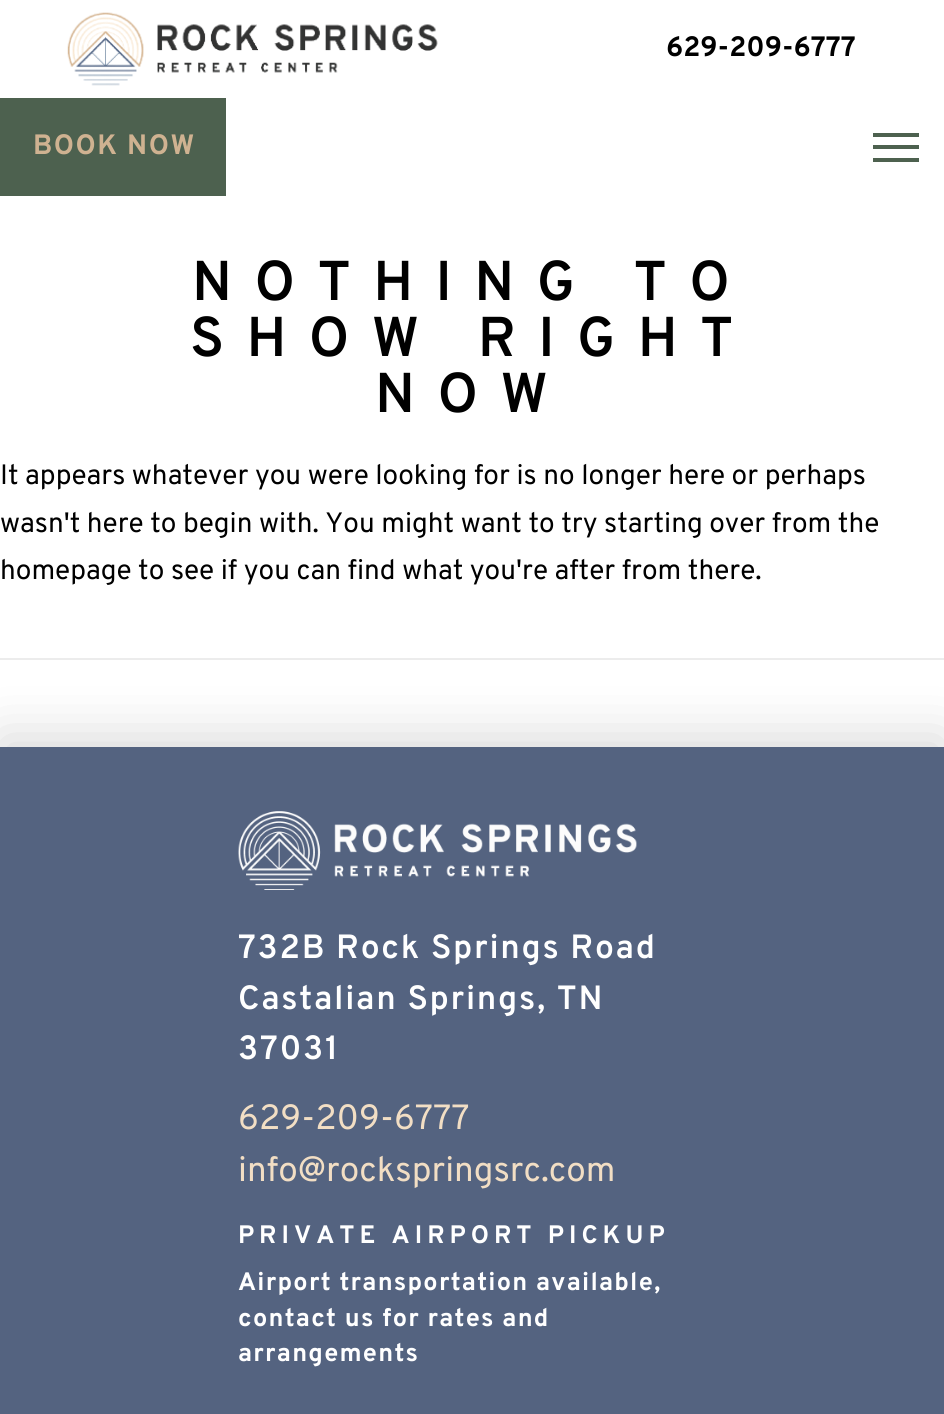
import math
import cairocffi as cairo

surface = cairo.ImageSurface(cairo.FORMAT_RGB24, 944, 1414)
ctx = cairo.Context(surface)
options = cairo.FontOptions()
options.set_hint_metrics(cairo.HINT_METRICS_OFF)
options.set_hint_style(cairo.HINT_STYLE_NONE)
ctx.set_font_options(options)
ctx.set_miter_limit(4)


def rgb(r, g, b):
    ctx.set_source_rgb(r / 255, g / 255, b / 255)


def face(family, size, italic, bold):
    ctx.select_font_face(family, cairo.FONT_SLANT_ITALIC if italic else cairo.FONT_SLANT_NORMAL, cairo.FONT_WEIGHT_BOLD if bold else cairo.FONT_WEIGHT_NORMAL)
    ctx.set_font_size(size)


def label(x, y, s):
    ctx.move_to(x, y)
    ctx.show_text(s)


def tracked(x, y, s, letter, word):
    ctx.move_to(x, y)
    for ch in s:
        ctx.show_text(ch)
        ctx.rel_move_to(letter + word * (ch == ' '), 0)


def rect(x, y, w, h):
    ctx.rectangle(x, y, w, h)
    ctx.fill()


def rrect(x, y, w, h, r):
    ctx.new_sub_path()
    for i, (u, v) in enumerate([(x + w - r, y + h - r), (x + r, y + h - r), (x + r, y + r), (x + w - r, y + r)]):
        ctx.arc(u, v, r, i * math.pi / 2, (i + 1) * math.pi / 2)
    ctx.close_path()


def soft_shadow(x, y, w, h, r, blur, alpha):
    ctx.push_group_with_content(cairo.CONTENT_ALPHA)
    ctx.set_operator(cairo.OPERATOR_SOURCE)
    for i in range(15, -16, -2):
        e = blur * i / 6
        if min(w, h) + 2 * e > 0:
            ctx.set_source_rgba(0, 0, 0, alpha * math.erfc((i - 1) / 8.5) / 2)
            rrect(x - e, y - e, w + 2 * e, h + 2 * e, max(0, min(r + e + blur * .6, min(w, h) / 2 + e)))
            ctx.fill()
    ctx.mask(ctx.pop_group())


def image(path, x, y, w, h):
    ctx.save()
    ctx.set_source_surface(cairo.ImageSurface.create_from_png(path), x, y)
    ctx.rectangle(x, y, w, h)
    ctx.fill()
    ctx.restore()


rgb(255, 255, 255)
ctx.paint()
image('image0.png', 67, 12, 371, 74)
face('Overpass', 28, 0, 1)
rgb(0, 0, 0)
label(666, 56, '629-209-6777')
rgb(77, 97, 79)
rect(0, 98, 226, 98)
rgb(207, 178, 145)
tracked(33, 154, 'BOOK NOW', 1.5, 0)
rgb(77, 97, 79)
rect(873, 133, 46, 4)
rect(873, 145, 46, 4)
rect(873, 158, 46, 4)
rgb(236, 236, 236)
rect(0, 658, 944, 2)
face('Overpass SemiBold', 56, 0, 0)
rgb(0, 0, 0)
tracked(192, 300, 'NOTHING TO', 22.4, 0)
tracked(190, 356, 'SHOW RIGHT', 22.4, 0)
tracked(375, 412, 'NOW', 22.4, 0)
face('Overpass', 28, 0, 0)
label(0, 484, 'It appears whatever you were looking for is no longer here or perhaps')
label(0, 532, 'wasn\'t here to begin with. You might want to try starting over from the')
label(0, 579, 'homepage to see if you can find what you\'re after from there.')
rgb(0, 0, 0)
soft_shadow(0, 737, 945, 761, 0, 28, 0.15)
rgb(84, 99, 128)
rect(0, 747, 944, 667)
image('image1.png', 238, 811, 399, 79)
face('Overpass SemiBold', 33.6, 0, 0)
rgb(255, 255, 255)
tracked(238, 958, '732B Rock Springs Road', 1.7, 0)
tracked(238, 1009, 'Castalian Springs, TN', 1.7, 0)
tracked(238, 1059, '37031', 1.7, 0)
face('Overpass', 35, 0, 0)
rgb(242, 222, 196)
label(238, 1129, '629-209-6777')
label(238, 1181, 'info@rockspringsrc.com')
face('Overpass', 25.25, 0, 1)
rgb(255, 255, 255)
tracked(238, 1243, 'PRIVATE AIRPORT PICKUP', 5, 0)
tracked(238, 1290, 'Airport transportation available,', 1.25, 0)
tracked(238, 1326, 'contact us for rates and', 1.25, 0)
tracked(238, 1361, 'arrangements', 1.25, 0)
surface.write_to_png('render.png')
